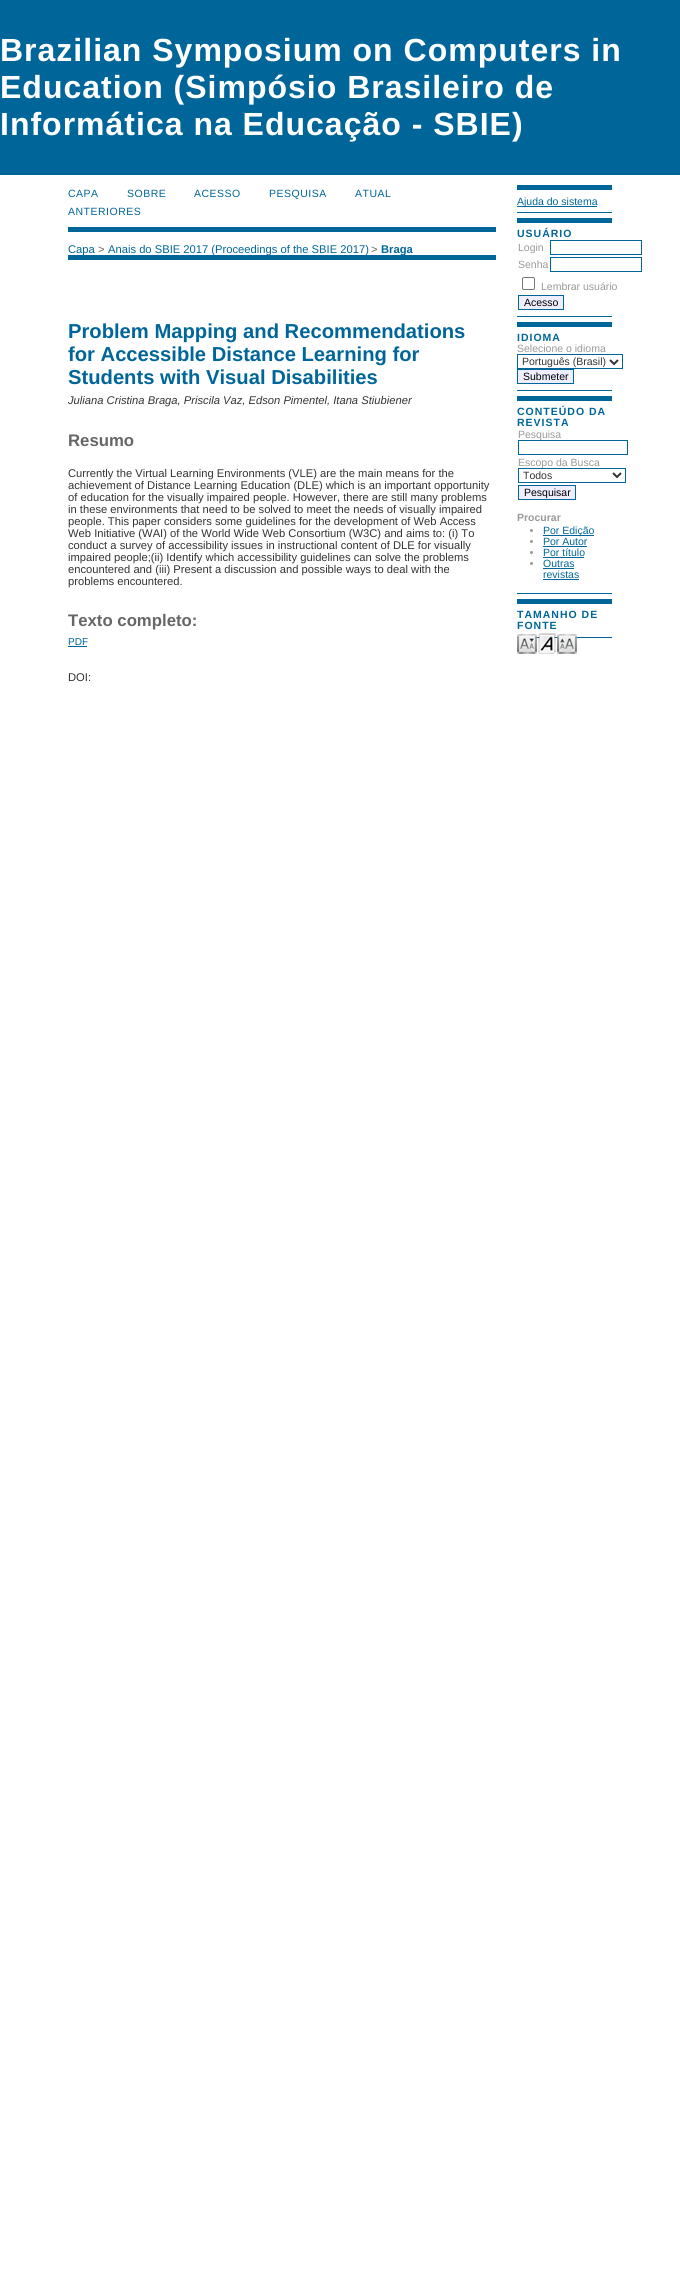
import math
import cairocffi as cairo

surface = cairo.ImageSurface(cairo.FORMAT_RGB24, 680, 2292)
ctx = cairo.Context(surface)
options = cairo.FontOptions()
options.set_hint_metrics(cairo.HINT_METRICS_OFF)
options.set_hint_style(cairo.HINT_STYLE_NONE)
ctx.set_font_options(options)
ctx.set_miter_limit(4)


def rgb(r, g, b):
    ctx.set_source_rgb(r / 255, g / 255, b / 255)


def face(family, size, italic, bold):
    ctx.select_font_face(family, cairo.FONT_SLANT_ITALIC if italic else cairo.FONT_SLANT_NORMAL, cairo.FONT_WEIGHT_BOLD if bold else cairo.FONT_WEIGHT_NORMAL)
    ctx.set_font_size(size)


def label(x, y, s):
    ctx.move_to(x, y)
    ctx.show_text(s)


def tracked(x, y, s, letter, word):
    ctx.move_to(x, y)
    for ch in s:
        ctx.show_text(ch)
        ctx.rel_move_to(letter + word * (ch == ' '), 0)


def rect(x, y, w, h):
    ctx.rectangle(x, y, w, h)
    ctx.fill()


def rrect(x, y, w, h, r):
    ctx.new_sub_path()
    for i, (u, v) in enumerate([(x + w - r, y + h - r), (x + r, y + h - r), (x + r, y + r), (x + w - r, y + r)]):
        ctx.arc(u, v, r, i * math.pi / 2, (i + 1) * math.pi / 2)
    ctx.close_path()


def image(path, x, y, w, h):
    ctx.save()
    ctx.set_source_surface(cairo.ImageSurface.create_from_png(path), x, y)
    ctx.rectangle(x, y, w, h)
    ctx.fill()
    ctx.restore()


rgb(255, 255, 255)
ctx.paint()
rgb(0, 102, 153)
rect(0, 0, 680, 175)
face('Liberation Sans', 32, 0, 1)
rgb(255, 255, 255)
tracked(0, 61, 'Brazilian Symposium on Computers in', 1, 0)
tracked(0, 98, 'Education (Simpósio Brasileiro de', 1, 0)
tracked(0, 135, 'Informática na Educação - SBIE)', 1, 0)
rgb(0, 102, 153)
rect(68, 227, 428, 5)
face('Liberation Sans', 10.5, 0, 0)
tracked(68, 197, 'CAPA', 0.5, 0)
tracked(127, 197, 'SOBRE', 0.5, 0)
tracked(194, 197, 'ACESSO', 0.5, 0)
tracked(269, 197, 'PESQUISA', 0.5, 0)
tracked(355, 197, 'ATUAL', 0.5, 0)
tracked(68, 215, 'ANTERIORES', 0.5, 0)
rect(68, 255, 428, 5)
face('Liberation Sans', 11.2, 0, 0)
label(68, 253, 'Capa')
rgb(102, 102, 102)
label(98, 253, '>')
rgb(0, 102, 153)
label(108, 253, 'Anais do SBIE 2017 (Proceedings of the SBIE 2017)')
rgb(102, 102, 102)
label(371, 253, '>')
face('Liberation Sans', 11.2, 0, 1)
rgb(0, 102, 153)
label(381, 253, 'Braga')
face('Liberation Sans', 20.2, 0, 1)
label(68, 338, 'Problem Mapping and Recommendations')
label(68, 361, 'for Accessible Distance Learning for')
label(68, 384, 'Students with Visual Disabilities')
face('Liberation Sans', 11.2, 1, 0)
rgb(51, 51, 51)
label(68, 404, 'Juliana Cristina Braga, Priscila Vaz, Edson Pimentel, Itana Stiubiener')
face('Liberation Sans', 16.75, 0, 1)
rgb(102, 102, 102)
label(68, 446, 'Resumo')
face('Liberation Sans', 11.2, 0, 0)
rgb(51, 51, 51)
label(68, 477, 'Currently the Virtual Learning Environments (VLE) are the main means for the')
label(68, 489, 'achievement of Distance Learning Education (DLE) which is an important opportunity')
label(68, 501, 'of education for the visually impaired people. However, there are still many problems')
label(68, 513, 'in these environments that need to be solved to meet the needs of visually impaired')
label(68, 525, 'people. This paper considers some guidelines for the development of Web Access')
label(68, 537, 'Web Initiative (WAI) of the World Wide Web Consortium (W3C) and aims to: (i) To')
label(68, 549, 'conduct a survey of accessibility issues in instructional content of DLE for visually')
label(68, 561, 'impaired people;(ii) Identify which accessibility guidelines can solve the problems')
label(68, 573, 'encountered and (iii) Present a discussion and possible ways to deal with the')
label(68, 585, 'problems encountered.')
face('Liberation Sans', 16.75, 0, 1)
rgb(102, 102, 102)
label(68, 626, 'Texto completo:')
face('Liberation Sans', 10, 0, 0)
rgb(0, 102, 153)
label(68, 645, 'PDF')
rect(68, 646, 19, 1)
face('Liberation Sans', 11.2, 0, 0)
rgb(51, 51, 51)
label(68, 681, 'DOI:')
rgb(0, 102, 153)
rect(517, 185, 95, 5)
rect(517, 212, 95, 1)
rect(517, 206, 80, 1)
face('Liberation Sans', 10.5, 0, 0)
label(517, 205, 'Ajuda do sistema')
rect(517, 218, 95, 5)
rect(517, 316, 95, 1)
face('Liberation Sans', 10.5, 0, 1)
tracked(517, 237, 'USUÁRIO', 1, 0)
face('Liberation Sans', 10.5, 0, 0)
rgb(153, 153, 153)
label(518, 251, 'Login')
ctx.rectangle(550.5, 240.5, 91, 14)
rgb(0, 102, 153)
ctx.set_line_width(1)
ctx.stroke()
rgb(153, 153, 153)
label(518, 268, 'Senha')
ctx.rectangle(550.5, 257.5, 91, 14)
rgb(0, 102, 153)
ctx.stroke()
rrect(522.5, 277.5, 12, 12, 1.5)
rgb(118, 118, 118)
ctx.stroke()
rgb(153, 153, 153)
label(541, 290, 'Lembrar usuário')
rgb(238, 238, 255)
ctx.rectangle(518.5, 295.5, 45, 14)
ctx.fill_preserve()
rgb(0, 102, 153)
ctx.stroke()
rgb(0, 0, 0)
label(524, 306, 'Acesso')
rgb(0, 102, 153)
rect(517, 322, 95, 5)
rect(517, 390, 95, 1)
face('Liberation Sans', 10.5, 0, 1)
tracked(517, 341, 'IDIOMA', 1, 0)
face('Liberation Sans', 10.5, 0, 0)
rgb(153, 153, 153)
label(517, 352, 'Selecione o idioma')
ctx.rectangle(517.5, 354.5, 105, 14)
rgb(0, 102, 153)
ctx.stroke()
ctx.new_path()
ctx.move_to(610, 360)
ctx.line_to(614, 364)
ctx.line_to(618, 360)
rgb(51, 51, 51)
ctx.set_line_width(2)
ctx.stroke()
label(522, 365, 'Português (Brasil)')
rgb(238, 238, 255)
ctx.rectangle(517.5, 369.5, 56, 14)
ctx.fill_preserve()
rgb(0, 102, 153)
ctx.set_line_width(1)
ctx.stroke()
rgb(0, 0, 0)
label(523, 380, 'Submeter')
rgb(0, 102, 153)
rect(517, 396, 95, 5)
rect(517, 593, 95, 1)
face('Liberation Sans', 10.5, 0, 1)
tracked(517, 415, 'CONTEÚDO DA', 1, 0)
tracked(517, 426, 'REVISTA', 1, 0)
face('Liberation Sans', 10.5, 0, 0)
rgb(153, 153, 153)
label(518, 438, 'Pesquisa')
ctx.rectangle(518.5, 440.5, 109, 14)
rgb(0, 102, 153)
ctx.stroke()
rgb(153, 153, 153)
label(518, 466, 'Escopo da Busca')
ctx.rectangle(518.5, 468.5, 107, 14)
rgb(0, 102, 153)
ctx.stroke()
ctx.new_path()
ctx.move_to(613, 473)
ctx.line_to(617, 477)
ctx.line_to(621, 473)
rgb(51, 51, 51)
ctx.set_line_width(2)
ctx.stroke()
label(523, 479, 'Todos')
rgb(238, 238, 255)
ctx.rectangle(518.5, 485.5, 57, 14)
ctx.fill_preserve()
rgb(0, 102, 153)
ctx.set_line_width(1)
ctx.stroke()
rgb(0, 0, 0)
label(524, 496, 'Pesquisar')
face('Liberation Sans', 10.5, 0, 1)
rgb(153, 153, 153)
label(517, 521, 'Procurar')
ctx.new_path()
ctx.arc(531.5, 530.5, 1.5, 0, 2 * math.pi)
ctx.fill()
rgb(0, 102, 153)
rect(543, 535, 51, 1)
face('Liberation Sans', 10.5, 0, 0)
label(543, 534, 'Por Edição')
rgb(153, 153, 153)
ctx.new_path()
ctx.arc(531.5, 541.5, 1.5, 0, 2 * math.pi)
ctx.fill()
rgb(0, 102, 153)
label(543, 545, 'Por Autor')
rect(543, 546, 44, 1)
rgb(153, 153, 153)
ctx.new_path()
ctx.arc(531.5, 552.5, 1.5, 0, 2 * math.pi)
ctx.fill()
rgb(0, 102, 153)
label(543, 556, 'Por título')
rect(543, 557, 41, 1)
rgb(153, 153, 153)
ctx.new_path()
ctx.arc(531.5, 563.5, 1.5, 0, 2 * math.pi)
ctx.fill()
rgb(0, 102, 153)
label(543, 567, 'Outras')
rect(543, 568, 31, 1)
label(543, 578, 'revistas')
rect(543, 579, 36, 1)
rect(517, 599, 95, 5)
rect(517, 637, 95, 1)
face('Liberation Sans', 10.5, 0, 1)
tracked(517, 618, 'TAMANHO DE', 1, 0)
tracked(517, 629, 'FONTE', 1, 0)
image('image0.png', 517, 634, 20, 20)
image('image1.png', 538, 633, 18, 21)
image('image2.png', 557, 634, 20, 20)
surface.write_to_png('render.png')
